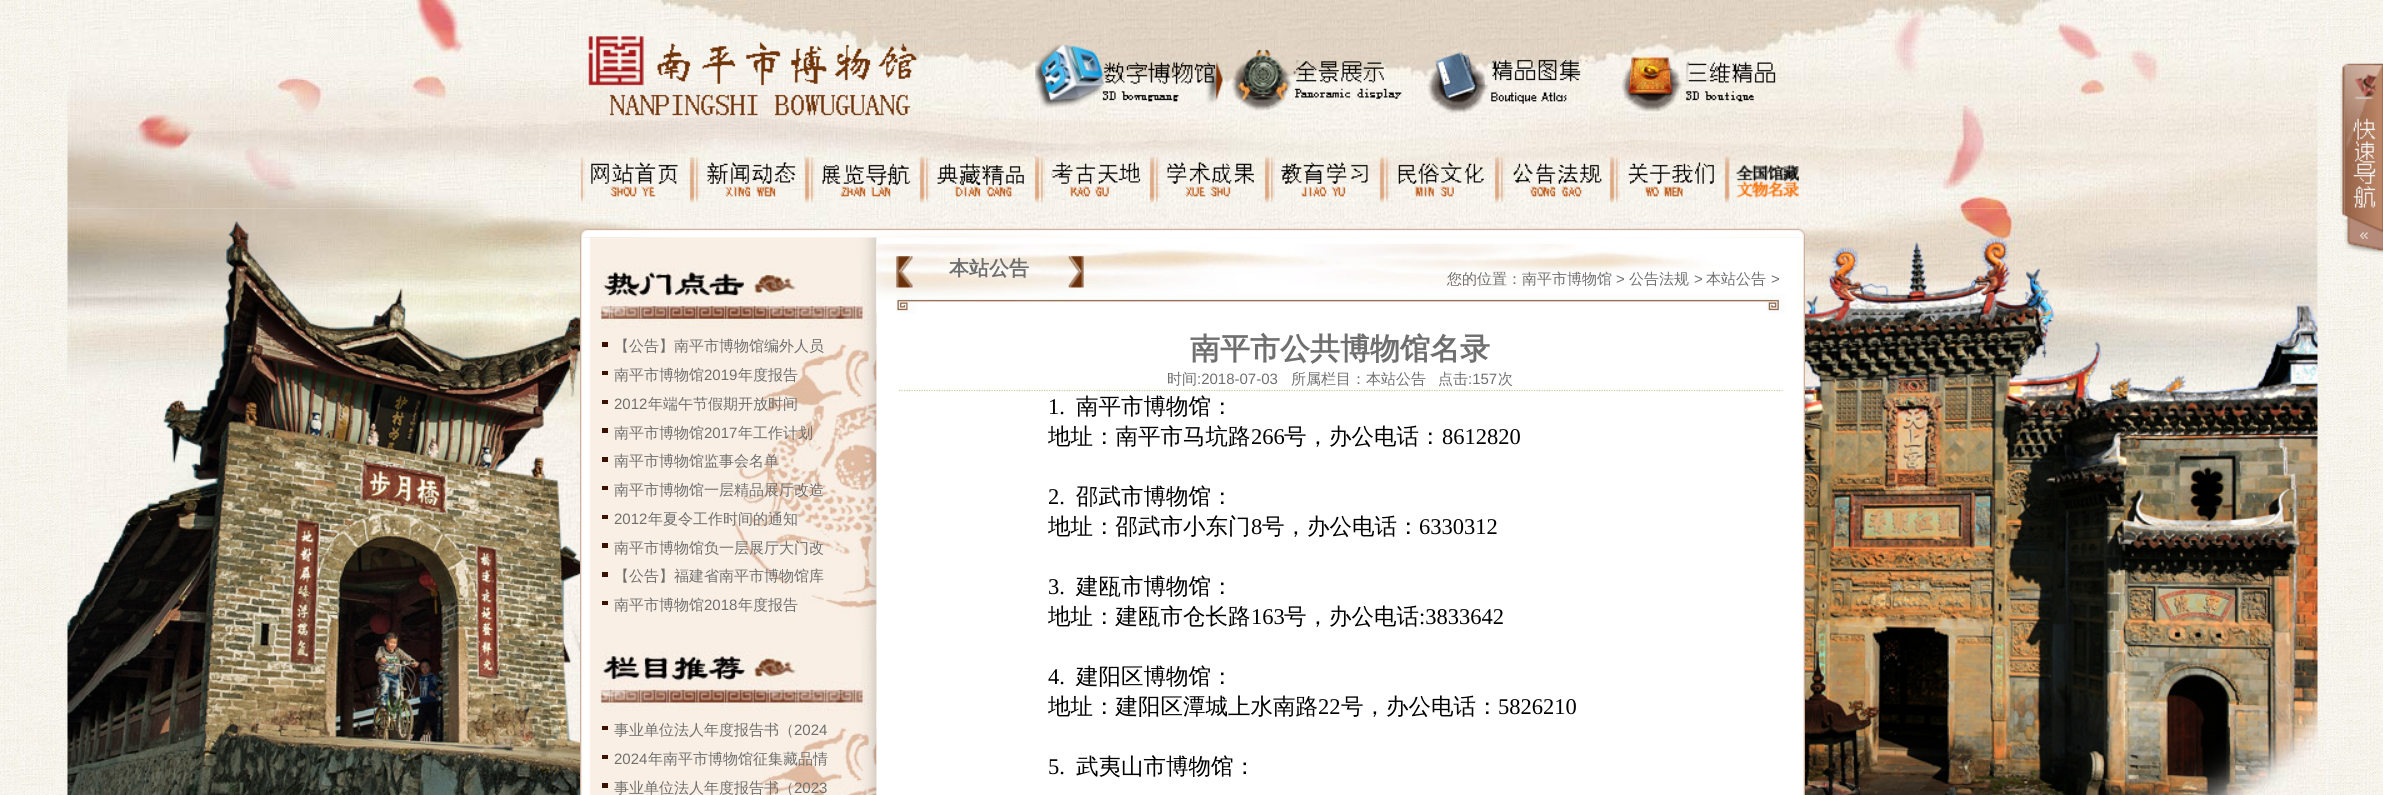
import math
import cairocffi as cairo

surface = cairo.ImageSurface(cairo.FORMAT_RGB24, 2383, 795)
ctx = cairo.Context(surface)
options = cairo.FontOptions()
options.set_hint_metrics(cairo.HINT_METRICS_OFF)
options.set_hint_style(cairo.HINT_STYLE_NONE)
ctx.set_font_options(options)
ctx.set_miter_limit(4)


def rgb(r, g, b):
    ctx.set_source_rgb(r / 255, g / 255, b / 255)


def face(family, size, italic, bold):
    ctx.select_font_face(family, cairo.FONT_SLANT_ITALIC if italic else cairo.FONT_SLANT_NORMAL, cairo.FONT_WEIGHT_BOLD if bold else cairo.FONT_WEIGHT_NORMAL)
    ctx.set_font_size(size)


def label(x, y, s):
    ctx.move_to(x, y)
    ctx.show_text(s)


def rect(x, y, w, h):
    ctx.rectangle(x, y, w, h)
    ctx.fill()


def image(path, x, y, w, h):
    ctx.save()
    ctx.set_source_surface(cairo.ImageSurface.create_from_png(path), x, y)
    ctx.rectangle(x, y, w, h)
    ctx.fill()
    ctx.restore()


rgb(255, 255, 255)
ctx.paint()
image('image0.png', 0, 0, 2383, 795)
image('image1.png', 67, 0, 2251, 209)
image('image2.png', 588, 36, 329, 80)
image('image3.png', 1035, 44, 188, 64)
image('image4.png', 1231, 49, 171, 62)
image('image5.png', 1427, 52, 170, 61)
image('image6.png', 1621, 57, 155, 55)
image('image7.png', 580, 156, 115, 47)
image('image8.png', 695, 156, 115, 47)
image('image9.png', 810, 156, 115, 47)
image('image10.png', 925, 156, 115, 47)
image('image11.png', 1040, 156, 115, 47)
image('image12.png', 1155, 156, 115, 47)
image('image13.png', 1270, 156, 115, 47)
image('image14.png', 1385, 156, 115, 47)
image('image15.png', 1500, 156, 115, 47)
image('image16.png', 1615, 156, 115, 47)
image('image17.png', 1736, 164, 63, 34)
image('image18.png', 2340, 63, 43, 192)
image('image19.png', 67, 208, 2251, 587)
image('image20.png', 580, 228, 1225, 10)
image('image21.png', 580, 237, 1225, 558)
image('image22.png', 600, 257, 277, 71)
image('image23.png', 733, 343, 144, 278)
rgb(59, 17, 4)
rect(602, 342, 6, 5)
face('WenQuanYi Zen Hei Medium', 15, 0, 0)
rgb(111, 111, 111)
label(614, 351, '【公告】南平市博物馆编外人员')
rgb(59, 17, 4)
rect(602, 371, 6, 4)
rgb(111, 111, 111)
label(614, 380, '南平市博物馆')
face('Liberation Sans', 15, 0, 0)
label(704, 380, '2019')
face('WenQuanYi Zen Hei Medium', 15, 0, 0)
label(738, 380, '年度报告')
rgb(59, 17, 4)
rect(602, 400, 6, 4)
face('Liberation Sans', 15, 0, 0)
rgb(111, 111, 111)
label(614, 409, '2012')
face('WenQuanYi Zen Hei Medium', 15, 0, 0)
label(648, 409, '年端午节假期开放时间')
rgb(59, 17, 4)
rect(602, 428, 6, 5)
rgb(111, 111, 111)
label(614, 438, '南平市博物馆')
face('Liberation Sans', 15, 0, 0)
label(704, 438, '2017')
face('WenQuanYi Zen Hei Medium', 15, 0, 0)
label(738, 438, '年工作计划')
rgb(59, 17, 4)
rect(602, 457, 6, 5)
rgb(111, 111, 111)
label(614, 466, '南平市博物馆监事会名单')
rgb(59, 17, 4)
rect(602, 486, 6, 4)
rgb(111, 111, 111)
label(614, 495, '南平市博物馆一层精品展厅改造')
rgb(59, 17, 4)
rect(602, 515, 6, 4)
face('Liberation Sans', 15, 0, 0)
rgb(111, 111, 111)
label(614, 524, '2012')
face('WenQuanYi Zen Hei Medium', 15, 0, 0)
label(648, 524, '年夏令工作时间的通知')
rgb(59, 17, 4)
rect(602, 543, 6, 5)
rgb(111, 111, 111)
label(614, 553, '南平市博物馆负一层展厅大门改')
rgb(59, 17, 4)
rect(602, 572, 6, 5)
rgb(111, 111, 111)
label(614, 581, '【公告】福建省南平市博物馆库')
rgb(59, 17, 4)
rect(602, 601, 6, 4)
rgb(111, 111, 111)
label(614, 610, '南平市博物馆')
face('Liberation Sans', 15, 0, 0)
label(704, 610, '2018')
face('WenQuanYi Zen Hei Medium', 15, 0, 0)
label(738, 610, '年度报告')
image('image24.png', 600, 641, 277, 70)
image('image25.png', 754, 727, 123, 68)
rgb(59, 17, 4)
rect(602, 726, 6, 4)
rgb(111, 111, 111)
label(614, 735, '事业单位法人年度报告书（')
face('Liberation Sans', 15, 0, 0)
label(794, 735, '2024')
rgb(59, 17, 4)
rect(602, 755, 6, 4)
rgb(111, 111, 111)
label(614, 764, '2024')
face('WenQuanYi Zen Hei Medium', 15, 0, 0)
label(648, 764, '年南平市博物馆征集藏品情')
rgb(59, 17, 4)
rect(602, 783, 6, 5)
rgb(111, 111, 111)
label(614, 793, '事业单位法人年度报告书（')
face('Liberation Sans', 15, 0, 0)
label(794, 793, '2023')
image('image26.png', 876, 243, 925, 71)
image('image27.png', 896, 256, 17, 32)
image('image28.png', 1068, 256, 16, 32)
face('WenQuanYi Zen Hei', 20, 0, 1)
label(949, 275, '本站公告')
face('WenQuanYi Zen Hei Medium', 15, 0, 0)
label(1447, 284, '您的位置：南平市博物馆')
face('Liberation Sans', 15, 0, 0)
label(1616, 284, '>')
face('WenQuanYi Zen Hei Medium', 15, 0, 0)
label(1629, 284, '公告法规')
face('Liberation Sans', 15, 0, 0)
label(1694, 284, '>')
face('WenQuanYi Zen Hei Medium', 15, 0, 0)
label(1706, 284, '本站公告')
face('Liberation Sans', 15, 0, 0)
label(1771, 284, '>')
face('WenQuanYi Zen Hei', 30, 0, 1)
label(1190, 359, '南平市公共博物馆名录')
ctx.new_path()
ctx.move_to(899, 390.5)
ctx.line_to(1782.5, 390.5)
rgb(204, 204, 153)
ctx.set_line_width(1.2)
ctx.set_dash([1.25, 1.25])
ctx.stroke()
face('WenQuanYi Zen Hei Medium', 15, 0, 0)
rgb(111, 111, 111)
label(1167, 384, '时间')
face('Liberation Sans', 15, 0, 0)
label(1197, 384, ':2018-07-03')
face('WenQuanYi Zen Hei Medium', 15, 0, 0)
label(1291, 384, '所属栏目：本站公告')
label(1438, 384, '点击')
face('Liberation Sans', 15, 0, 0)
label(1468, 384, ':157')
face('WenQuanYi Zen Hei Medium', 15, 0, 0)
label(1498, 384, '次')
face('Liberation Serif', 22.5, 0, 0)
rgb(0, 0, 0)
label(1048, 414, '1.')
face('WenQuanYi Zen Hei Medium', 22.5, 0, 0)
label(1076, 414, '南平市博物馆：')
label(1048, 444, '地址：南平市马坑路')
face('Liberation Serif', 22.5, 0, 0)
label(1251, 444, '266')
face('WenQuanYi Zen Hei Medium', 22.5, 0, 0)
label(1284, 444, '号，办公电话：')
face('Liberation Serif', 22.5, 0, 0)
label(1442, 444, '8612820')
label(1048, 504, '2.')
face('WenQuanYi Zen Hei Medium', 22.5, 0, 0)
label(1076, 504, '邵武市博物馆：')
label(1048, 534, '地址：邵武市小东门')
face('Liberation Serif', 22.5, 0, 0)
label(1251, 534, '8')
face('WenQuanYi Zen Hei Medium', 22.5, 0, 0)
label(1262, 534, '号，办公电话：')
face('Liberation Serif', 22.5, 0, 0)
label(1419, 534, '6330312')
label(1048, 594, '3.')
face('WenQuanYi Zen Hei Medium', 22.5, 0, 0)
label(1076, 594, '建瓯市博物馆：')
label(1048, 624, '地址：建瓯市仓长路')
face('Liberation Serif', 22.5, 0, 0)
label(1251, 624, '163')
face('WenQuanYi Zen Hei Medium', 22.5, 0, 0)
label(1284, 624, '号，办公电话')
face('Liberation Serif', 22.5, 0, 0)
label(1419, 624, ':3833642')
label(1048, 684, '4.')
face('WenQuanYi Zen Hei Medium', 22.5, 0, 0)
label(1076, 684, '建阳区博物馆：')
label(1048, 714, '地址：建阳区潭城上水南路')
face('Liberation Serif', 22.5, 0, 0)
label(1318, 714, '22')
face('WenQuanYi Zen Hei Medium', 22.5, 0, 0)
label(1341, 714, '号，办公电话：')
face('Liberation Serif', 22.5, 0, 0)
label(1498, 714, '5826210')
label(1048, 774, '5.')
face('WenQuanYi Zen Hei Medium', 22.5, 0, 0)
label(1076, 774, '武夷山市博物馆：')
surface.write_to_png('render.png')
